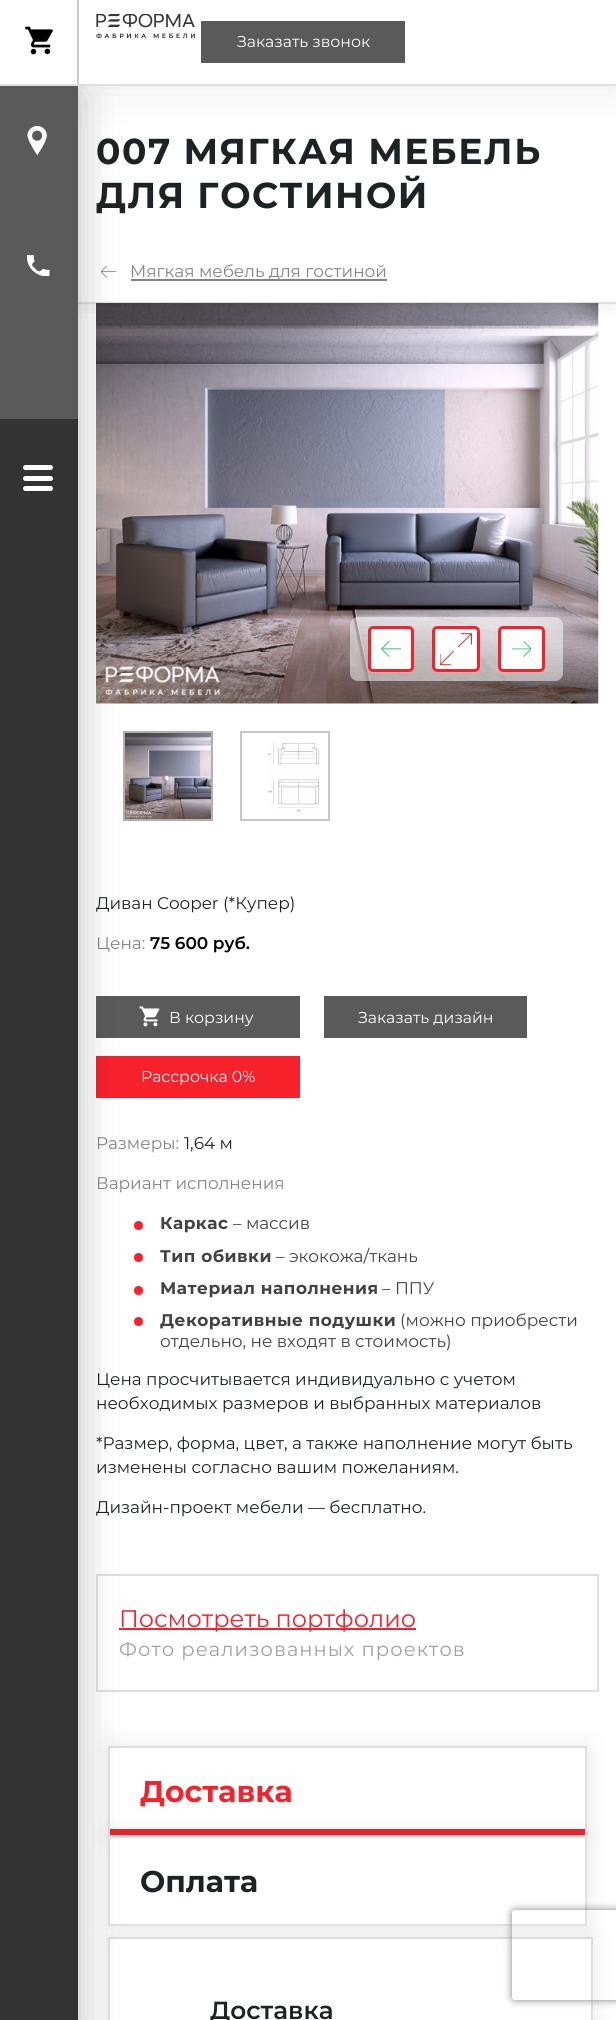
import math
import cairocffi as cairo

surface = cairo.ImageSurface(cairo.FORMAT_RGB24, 616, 2020)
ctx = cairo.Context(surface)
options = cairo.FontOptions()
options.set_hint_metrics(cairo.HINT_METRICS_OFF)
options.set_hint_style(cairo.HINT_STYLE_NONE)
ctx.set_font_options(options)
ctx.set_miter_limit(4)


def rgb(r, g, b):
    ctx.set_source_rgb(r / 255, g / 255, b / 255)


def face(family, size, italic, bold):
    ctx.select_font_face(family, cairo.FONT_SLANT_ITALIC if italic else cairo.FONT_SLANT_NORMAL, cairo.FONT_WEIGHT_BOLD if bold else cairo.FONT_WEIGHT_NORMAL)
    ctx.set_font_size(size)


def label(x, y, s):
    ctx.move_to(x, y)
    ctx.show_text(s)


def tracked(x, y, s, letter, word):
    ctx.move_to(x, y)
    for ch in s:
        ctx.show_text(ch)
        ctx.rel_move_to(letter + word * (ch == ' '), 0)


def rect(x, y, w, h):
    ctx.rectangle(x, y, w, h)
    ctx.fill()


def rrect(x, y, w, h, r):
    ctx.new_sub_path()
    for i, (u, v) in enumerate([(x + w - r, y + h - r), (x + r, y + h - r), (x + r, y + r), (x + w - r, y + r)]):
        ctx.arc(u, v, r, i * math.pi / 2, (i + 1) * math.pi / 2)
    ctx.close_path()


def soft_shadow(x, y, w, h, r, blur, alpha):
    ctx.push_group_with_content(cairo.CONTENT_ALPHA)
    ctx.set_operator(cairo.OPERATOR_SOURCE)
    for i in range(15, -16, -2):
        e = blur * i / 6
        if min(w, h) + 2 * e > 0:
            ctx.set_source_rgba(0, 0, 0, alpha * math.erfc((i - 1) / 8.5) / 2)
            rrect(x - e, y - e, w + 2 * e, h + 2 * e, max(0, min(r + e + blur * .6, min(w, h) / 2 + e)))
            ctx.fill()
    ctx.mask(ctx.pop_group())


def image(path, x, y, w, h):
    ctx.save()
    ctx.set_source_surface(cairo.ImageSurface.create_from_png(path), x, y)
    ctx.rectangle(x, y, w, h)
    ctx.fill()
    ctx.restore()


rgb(255, 255, 255)
ctx.paint()
rgb(33, 30, 22)
soft_shadow(0, 0, 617, 86, 0, 20, 0.1)
rgb(255, 255, 255)
rect(0, 0, 616, 84)
rgb(223, 223, 223)
rect(0, 84, 616, 2)
image('image0.png', 25, 26, 28, 29)
rgb(204, 204, 204)
rect(77, 0, 2, 84)
image('image1.png', 96, 14, 99, 24)
rgb(90, 90, 90)
rect(201, 21, 204, 42)
face('Montserrat', 15.75, 0, 0)
rgb(255, 255, 255)
label(237, 47, 'Заказать звонок')
ctx.save()
ctx.rectangle(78, 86, 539, 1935)
ctx.clip()
ctx.rectangle(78, 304, 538, 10)
ctx.clip()
rgb(33, 30, 22)
soft_shadow(78, 86, 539, 217, 0, 15, 0.1)
ctx.restore()
rgb(223, 223, 223)
rect(78, 302, 538, 2)
image('image4.png', 101, 266, 15, 12)
rgb(130, 130, 130)
rect(131, 279, 256, 2)
image('image5.png', 96, 303, 503, 401)
image('image9.png', 125, 733, 86, 86)
ctx.rectangle(124, 732, 88, 88)
rgb(176, 176, 176)
ctx.stroke()
rgb(90, 90, 90)
rect(96, 996, 204, 42)
rgb(247, 33, 44)
rect(96, 1056, 204, 42)
ctx.arc(138.5, 1225.5, 4.5, 0, 2 * math.pi)
ctx.fill()
ctx.arc(138.5, 1257.5, 4.5, 0, 2 * math.pi)
ctx.fill()
ctx.arc(138.5, 1290.5, 4.5, 0, 2 * math.pi)
ctx.fill()
ctx.arc(138.5, 1321.5, 4.5, 0, 2 * math.pi)
ctx.fill()
ctx.rectangle(97, 1575, 501, 116)
rgb(223, 223, 223)
ctx.stroke()
rgb(247, 33, 44)
rect(119, 1628, 297, 2)
rgb(33, 30, 22)
soft_shadow(108, 1746, 479, 90, 0, 11, 0.1)
rgb(255, 255, 255)
rect(110, 1748, 475, 81)
ctx.rectangle(109, 1747, 477, 88)
rgb(223, 223, 223)
ctx.stroke()
rgb(247, 33, 44)
rect(110, 1829, 475, 6)
ctx.save()
ctx.set_fill_rule(cairo.FILL_RULE_EVEN_ODD)
ctx.new_path()
ctx.move_to(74, 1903)
ctx.line_to(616, 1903)
ctx.line_to(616, 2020)
ctx.line_to(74, 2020)
ctx.close_path()
ctx.move_to(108, 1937)
ctx.line_to(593, 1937)
ctx.line_to(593, 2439)
ctx.line_to(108, 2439)
ctx.close_path()
ctx.clip()
rgb(33, 30, 22)
soft_shadow(108, 1937, 485, 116, 0, 11, 0.1)
ctx.restore()
ctx.rectangle(109, 1938, 483, 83)
rgb(223, 223, 223)
ctx.stroke()
rgb(33, 30, 22)
soft_shadow(108, 1836, 479, 90, 0, 11, 0.1)
rgb(255, 255, 255)
ctx.rectangle(109, 1837, 477, 88)
ctx.fill_preserve()
rgb(223, 223, 223)
ctx.stroke()
ctx.save()
ctx.rectangle(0, 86, 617, 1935)
ctx.clip()
rgb(33, 30, 22)
soft_shadow(0, 95, 78, 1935, 0, 20, 0.3)
ctx.restore()
rgb(51, 51, 51)
rect(0, 419, 78, 1601)
rgb(90, 90, 90)
rect(0, 86, 78, 333)
image('image2.png', 27, 126, 20, 30)
image('image3.png', 27, 255, 23, 21)
rgb(255, 255, 255)
rrect(23, 465, 30, 5, 2.5)
ctx.fill()
rrect(23, 476, 30, 5, 2.5)
ctx.fill()
rrect(23, 486, 30, 5, 2.5)
ctx.fill()
face('Montserrat', 36, 0, 1)
rgb(29, 35, 37)
tracked(96, 164, '007 МЯГКАЯ МЕБЕЛЬ', 1.5, 0)
tracked(96, 208, 'ДЛЯ ГОСТИНОЙ', 1.5, 0)
face('Montserrat', 16.9, 0, 0)
rgb(132, 132, 132)
label(130, 277, 'Мягкая мебель для гостиной')
ctx.set_source_rgba(1, 1, 1, 0.5)
rrect(350, 617, 213, 64, 8)
ctx.fill()
rgb(255, 255, 255)
rrect(369.5, 627.5, 43, 43, 3.5)
ctx.fill_preserve()
rgb(247, 33, 44)
ctx.set_line_width(3)
ctx.stroke()
image('image6.png', 381, 641, 20, 16)
rgb(255, 255, 255)
rrect(432, 626, 48, 46, 5)
ctx.fill()
image('image7.png', 440, 633, 33, 33)
rrect(433.5, 627.5, 45, 43, 3.5)
rgb(247, 33, 44)
ctx.stroke()
rgb(255, 255, 255)
rrect(499.5, 627.5, 44, 43, 3.5)
ctx.fill_preserve()
rgb(247, 33, 44)
ctx.stroke()
image('image8.png', 512, 641, 19, 16)
image('image10.png', 267, 743, 53, 69)
ctx.rectangle(241, 732, 88, 88)
rgb(200, 200, 200)
ctx.set_line_width(2)
ctx.stroke()
rgb(29, 35, 37)
label(96, 909, 'Диван Cooper (*Купер)')
rgb(132, 132, 132)
label(96, 949, 'Цена:')
face('Montserrat SemiBold', 16.9, 0, 0)
rgb(0, 0, 0)
label(150, 949, '75 600 руб.')
image('image11.png', 139, 1006, 21, 21)
face('Montserrat', 15.75, 0, 0)
rgb(255, 255, 255)
label(169, 1023, 'В корзину')
rgb(90, 90, 90)
rect(324, 996, 203, 42)
rgb(255, 255, 255)
label(358, 1023, 'Заказать дизайн')
label(141, 1082, 'Рассрочка 0%')
face('Montserrat', 16.9, 0, 0)
rgb(132, 132, 132)
label(96, 1149, 'Размеры:')
rgb(29, 35, 37)
label(184, 1149, '1,64 м')
rgb(132, 132, 132)
label(96, 1189, 'Вариант исполнения')
face('Montserrat', 16.9, 0, 1)
rgb(66, 66, 66)
tracked(160, 1229, 'Каркас', 0.5, 0)
face('Montserrat', 16.9, 0, 0)
label(233, 1229, '– массив')
face('Montserrat', 16.9, 0, 1)
tracked(160, 1262, 'Тип обивки', 0.5, 0)
face('Montserrat', 16.9, 0, 0)
label(276, 1262, '– экокожа/ткань')
face('Montserrat', 16.9, 0, 1)
tracked(160, 1294, 'Материал наполнения', 0.5, 0)
face('Montserrat', 16.9, 0, 0)
label(382, 1294, '– ППУ')
face('Montserrat', 16.9, 0, 1)
tracked(160, 1326, 'Декоративные подушки', 0.5, 0)
face('Montserrat', 16.9, 0, 0)
label(400, 1326, '(можно приобрести')
label(160, 1347, 'отдельно, не входят в стоимость)')
rgb(29, 35, 37)
label(96, 1385, 'Цена просчитывается индивидуально с учетом')
label(96, 1409, 'необходимых размеров и выбранных материалов')
label(96, 1449, '*Размер, форма, цвет, а также наполнение могут быть')
label(96, 1473, 'изменены согласно вашим пожеланиям.')
label(96, 1513, 'Дизайн-проект мебели — бесплатно.')
face('Montserrat', 24, 0, 0)
rgb(247, 33, 44)
label(119, 1627, 'Посмотреть портфолио')
face('Montserrat', 19.5, 0, 0)
rgb(160, 160, 160)
tracked(119, 1656, 'Фото реализованных проектов', 1.05, 0)
face('Montserrat', 30, 0, 1)
rgb(247, 33, 44)
label(140, 1802, 'Доставка')
rgb(29, 35, 37)
label(140, 1892, 'Оплата')
face('Montserrat SemiBold', 24.75, 0, 0)
label(210, 2019, 'Доставка')
ctx.save()
ctx.set_fill_rule(cairo.FILL_RULE_EVEN_ODD)
ctx.new_path()
ctx.move_to(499, 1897)
ctx.line_to(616, 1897)
ctx.line_to(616, 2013)
ctx.line_to(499, 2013)
ctx.close_path()
ctx.move_to(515, 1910)
ctx.line_to(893, 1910)
ctx.curve_to(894.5, 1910, 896, 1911.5, 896, 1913)
ctx.line_to(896, 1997)
ctx.curve_to(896, 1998.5, 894.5, 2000, 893, 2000)
ctx.line_to(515, 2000)
ctx.curve_to(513.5, 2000, 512, 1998.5, 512, 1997)
ctx.line_to(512, 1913)
ctx.curve_to(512, 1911.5, 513.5, 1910, 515, 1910)
ctx.close_path()
ctx.clip()
rgb(128, 128, 128)
soft_shadow(512, 1910, 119, 90, 3, 4, 1)
ctx.restore()
surface.write_to_png('render.png')
